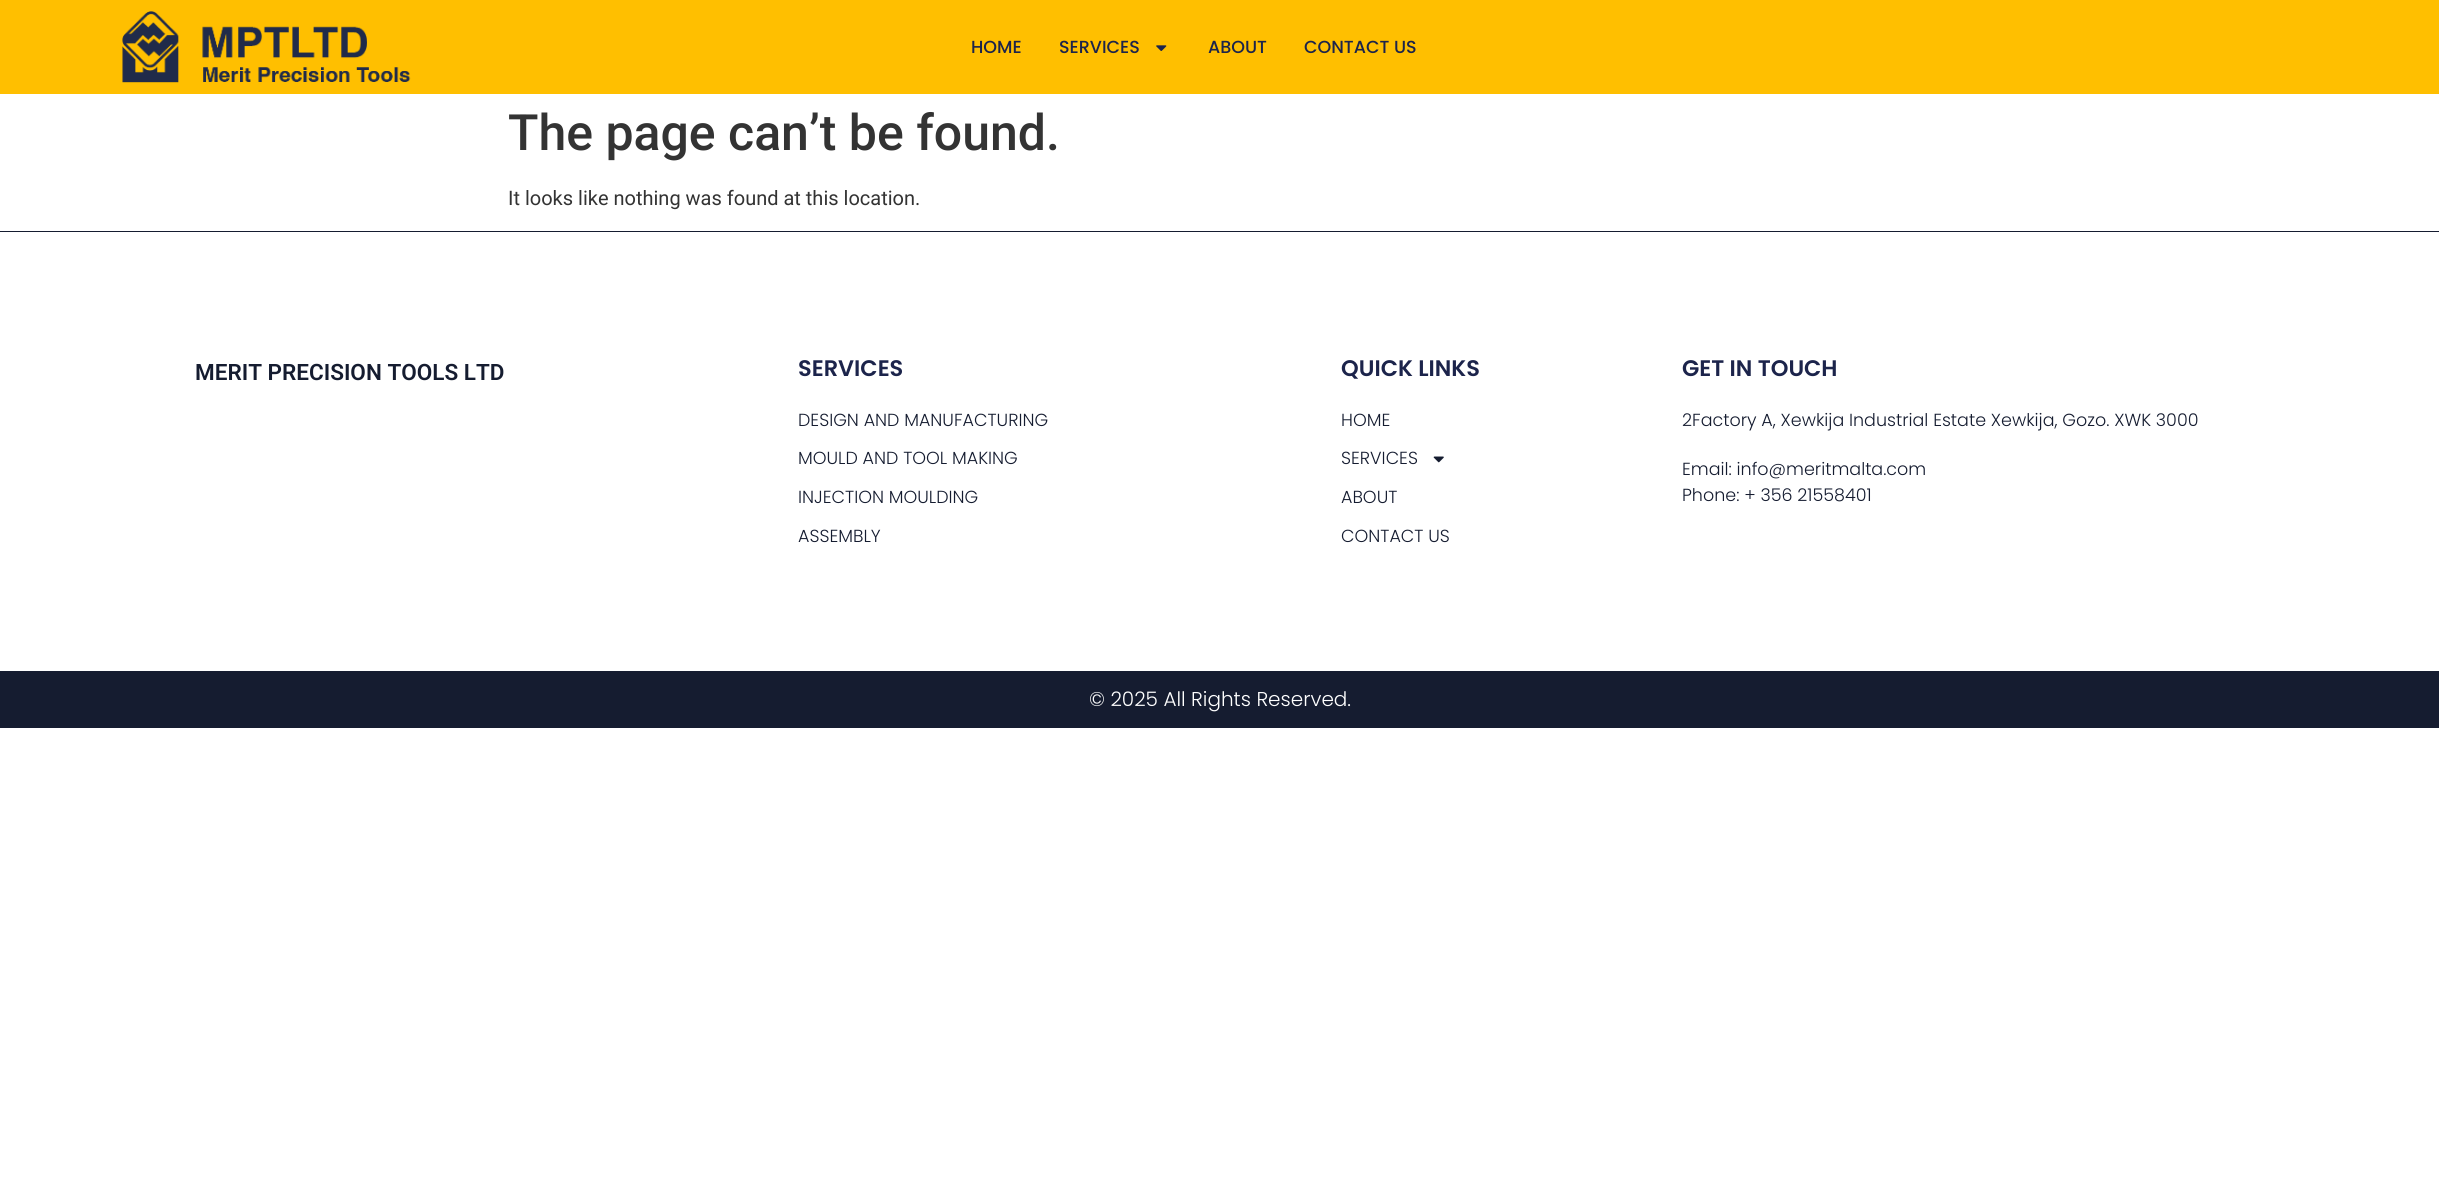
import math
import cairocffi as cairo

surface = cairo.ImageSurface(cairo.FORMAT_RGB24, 2439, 1187)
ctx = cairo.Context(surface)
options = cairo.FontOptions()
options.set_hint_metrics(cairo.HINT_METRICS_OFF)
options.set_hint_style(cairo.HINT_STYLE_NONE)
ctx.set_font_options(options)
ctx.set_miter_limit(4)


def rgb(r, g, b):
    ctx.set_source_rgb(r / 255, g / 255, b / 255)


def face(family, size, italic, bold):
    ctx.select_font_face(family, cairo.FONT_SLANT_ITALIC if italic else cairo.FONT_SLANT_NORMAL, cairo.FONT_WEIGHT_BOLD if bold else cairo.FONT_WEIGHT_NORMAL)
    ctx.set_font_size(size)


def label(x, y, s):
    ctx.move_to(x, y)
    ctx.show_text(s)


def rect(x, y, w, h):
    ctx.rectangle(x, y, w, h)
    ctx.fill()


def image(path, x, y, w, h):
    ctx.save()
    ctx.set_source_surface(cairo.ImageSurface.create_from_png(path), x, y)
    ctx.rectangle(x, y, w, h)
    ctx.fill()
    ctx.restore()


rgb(255, 255, 255)
ctx.paint()
rgb(255, 191, 0)
rect(0, 0, 2439, 94)
image('image0.png', 122, 11, 289, 72)
face('Poppins Medium', 17.5, 0, 0)
rgb(28, 36, 75)
label(971, 53, 'HOME')
label(1059, 53, 'SERVICES')
image('image1.png', 1156, 45, 11, 6)
label(1208, 53, 'ABOUT')
label(1304, 53, 'CONTACT US')
face('Roboto Medium', 50, 0, 0)
rgb(51, 51, 51)
label(508, 150, 'The page can’t be found.')
face('Roboto', 20, 0, 0)
label(508, 205, 'It looks like nothing was found at this location.')
rgb(21, 28, 48)
rect(0, 231, 2439, 1)
face('Roboto SemiBold', 22.5, 0, 0)
label(195, 380, 'MERIT PRECISION TOOLS LTD')
face('Poppins SemiBold', 22.5, 0, 0)
rgb(28, 36, 75)
label(798, 376, 'SERVICES')
face('Poppins Light', 17.5, 0, 0)
rgb(21, 28, 48)
label(798, 426, 'DESIGN AND MANUFACTURING')
label(798, 464, 'MOULD AND TOOL MAKING')
label(798, 503, 'INJECTION MOULDING')
label(798, 542, 'ASSEMBLY')
face('Poppins SemiBold', 22.5, 0, 0)
rgb(28, 36, 75)
label(1341, 376, 'QUICK LINKS')
face('Poppins Light', 17.5, 0, 0)
rgb(21, 28, 48)
label(1341, 426, 'HOME')
label(1341, 464, 'SERVICES')
image('image2.png', 1433, 456, 11, 7)
label(1341, 503, 'ABOUT')
label(1341, 542, 'CONTACT US')
face('Poppins SemiBold', 22.5, 0, 0)
rgb(28, 36, 75)
label(1682, 376, 'GET IN TOUCH')
face('Poppins Light', 17.5, 0, 0)
rgb(21, 28, 48)
label(1682, 426, '2Factory A, Xewkija Industrial Estate Xewkija, Gozo. XWK 3000')
label(1682, 475, 'Email: info@meritmalta.com')
label(1682, 501, 'Phone: + 356 21558401')
rect(0, 671, 2439, 57)
face('Poppins Light', 20, 0, 0)
rgb(255, 255, 255)
label(1089, 706, '© 2025 All Rights Reserved.')
surface.write_to_png('render.png')
